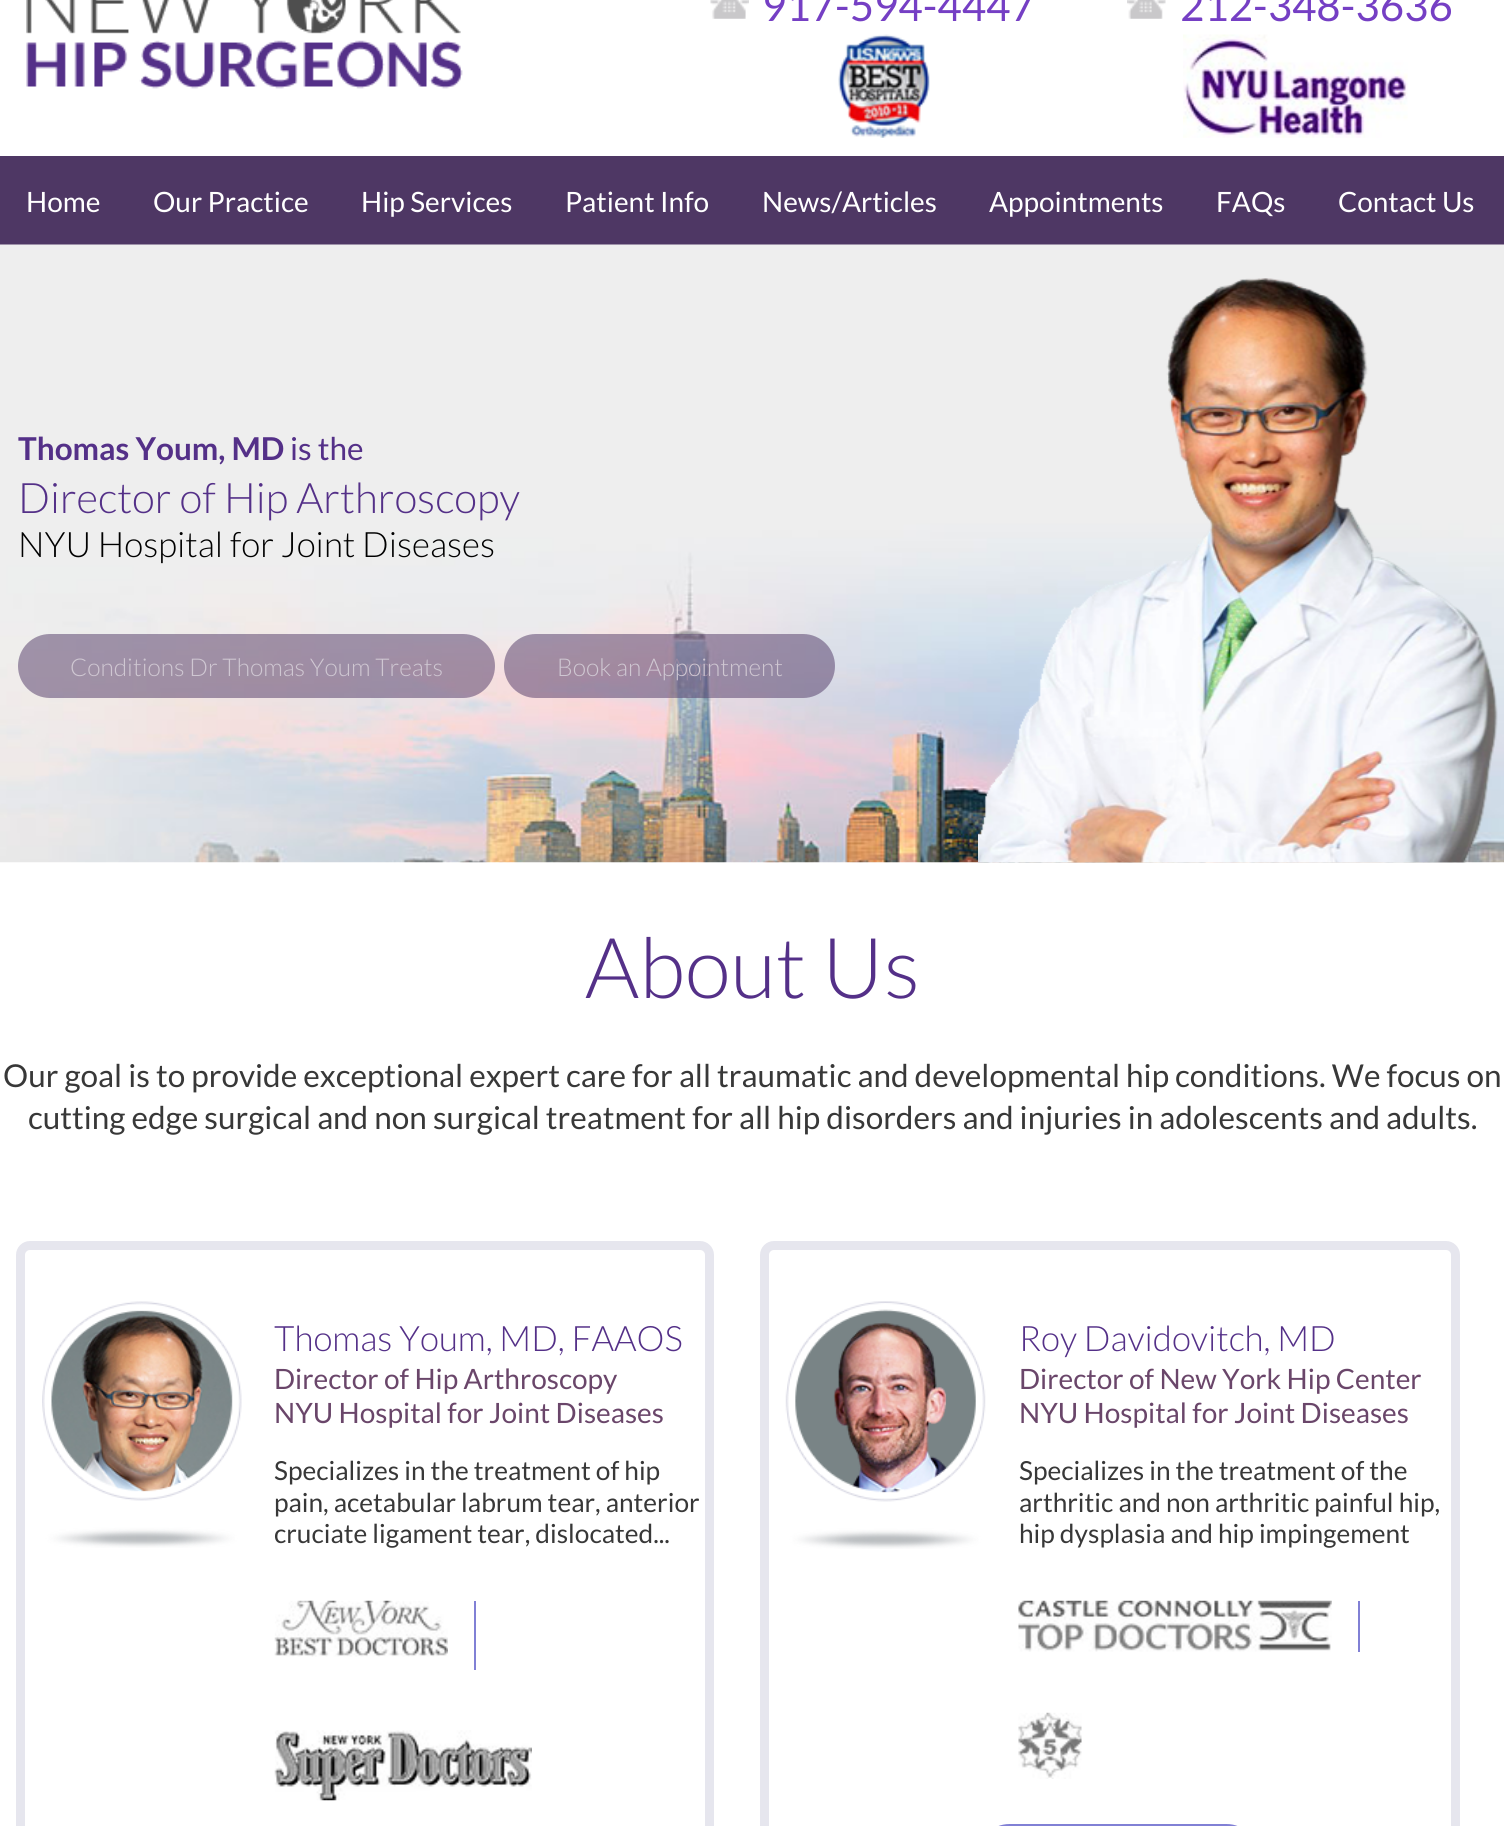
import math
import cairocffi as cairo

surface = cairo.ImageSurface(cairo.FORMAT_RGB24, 1504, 1826)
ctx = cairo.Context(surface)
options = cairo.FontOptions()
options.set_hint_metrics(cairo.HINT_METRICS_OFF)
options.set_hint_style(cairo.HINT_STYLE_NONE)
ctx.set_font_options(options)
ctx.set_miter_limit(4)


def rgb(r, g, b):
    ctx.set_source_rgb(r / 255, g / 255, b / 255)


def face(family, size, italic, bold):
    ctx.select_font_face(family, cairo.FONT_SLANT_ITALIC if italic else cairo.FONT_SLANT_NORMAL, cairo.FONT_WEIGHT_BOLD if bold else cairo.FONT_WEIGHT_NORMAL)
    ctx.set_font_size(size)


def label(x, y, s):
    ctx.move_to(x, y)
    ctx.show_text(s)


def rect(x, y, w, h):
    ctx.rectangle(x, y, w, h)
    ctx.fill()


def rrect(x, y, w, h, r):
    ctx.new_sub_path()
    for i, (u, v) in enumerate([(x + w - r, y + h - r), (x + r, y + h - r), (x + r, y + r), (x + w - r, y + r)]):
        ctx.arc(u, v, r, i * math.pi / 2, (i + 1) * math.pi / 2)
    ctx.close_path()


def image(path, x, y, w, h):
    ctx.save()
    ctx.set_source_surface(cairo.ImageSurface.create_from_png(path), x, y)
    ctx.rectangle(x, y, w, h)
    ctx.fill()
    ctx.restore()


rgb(255, 255, 255)
ctx.paint()
image('image0.png', 26, 0, 437, 89)
image('image1.png', 710, 0, 39, 19)
face('Lato', 42, 0, 0)
rgb(117, 63, 196)
label(762, 21, '917-594-4447')
image('image2.png', 1127, 0, 39, 19)
label(1180, 21, '212-348-3636')
image('image3.png', 838, 34, 92, 104)
image('image4.png', 1183, 34, 225, 104)
rgb(78, 55, 100)
rect(0, 156, 1504, 89)
face('Lato', 28, 0, 0)
rgb(255, 255, 255)
label(26, 212, 'Home')
label(153, 212, 'Our Practice')
label(361, 212, 'Hip Services')
label(565, 212, 'Patient Info')
label(762, 212, 'News/Articles')
label(989, 212, 'Appointments')
label(1216, 212, 'FAQs')
label(1338, 212, 'Contact Us')
image('image5.png', 0, 244, 1504, 619)
face('Lato', 31.5, 0, 1)
rgb(84, 48, 136)
label(18, 460, 'Thomas Youm, MD')
face('Lato', 31.5, 0, 0)
label(290, 460, 'is the')
face('Lato Light', 42, 0, 0)
label(18, 513, 'Director of Hip Arthroscopy')
face('Lato Light', 35, 0, 0)
rgb(0, 0, 0)
label(18, 557, 'NYU Hospital for Joint Diseases')
ctx.set_source_rgba(0.306, 0.216, 0.392, 0.5)
rrect(18, 634, 477, 64, 32)
ctx.fill()
face('Lato Light', 24.5, 0, 0)
rgb(207, 199, 210)
label(70, 676, 'Conditions Dr Thomas Youm Treats')
rgb(223, 215, 221)
label(669, 676, 'App')
ctx.set_source_rgba(0.306, 0.216, 0.392, 0.5)
rrect(504, 634, 331, 64, 32)
ctx.fill()
rgb(207, 199, 210)
label(557, 676, 'Book an Appointment')
image('image6.png', 978, 278, 520, 585)
face('Lato Light', 84, 0, 0)
rgb(84, 48, 136)
label(585, 998, 'About Us')
face('Lato', 31.5, 0, 0)
rgb(56, 56, 56)
label(3, 1087, 'Our goal is to provide exceptional expert care for all traumatic and developmental hip conditions. We focus on')
label(28, 1129, 'cutting edge surgical and non surgical treatment for all hip disorders and injuries in adolescents and adults.')
rrect(20.5, 1245.5, 689, 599, 9.5)
rgb(230, 230, 238)
ctx.set_line_width(9)
ctx.stroke()
image('image7.png', 42, 1301, 200, 247)
face('Lato Light', 35, 0, 0)
rgb(84, 48, 136)
label(274, 1351, 'Thomas Youm, MD, FAAOS')
face('Lato', 28, 0, 0)
rgb(106, 70, 106)
label(274, 1389, 'Director of Hip Arthroscopy')
label(274, 1423, 'NYU Hospital for Joint Diseases')
face('Lato', 26.25, 0, 0)
rgb(56, 56, 56)
label(274, 1480, 'Specializes in the treatment of hip')
label(274, 1512, 'pain, acetabular labrum tear, anterior')
label(274, 1543, 'cruciate ligament tear, dislocated...')
image('image8.png', 274, 1600, 174, 57)
rgb(129, 128, 213)
rect(474, 1601, 2, 69)
image('image9.png', 274, 1730, 258, 71)
rrect(764.5, 1245.5, 691, 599, 9.5)
rgb(230, 230, 238)
ctx.stroke()
image('image10.png', 785, 1301, 201, 248)
face('Lato Light', 35, 0, 0)
rgb(84, 48, 136)
label(1019, 1351, 'Roy Davidovitch, MD')
face('Lato', 28, 0, 0)
rgb(106, 70, 106)
label(1019, 1389, 'Director of New York Hip Center')
label(1019, 1423, 'NYU Hospital for Joint Diseases')
face('Lato', 26.25, 0, 0)
rgb(56, 56, 56)
label(1019, 1480, 'Specializes in the treatment of the')
label(1019, 1512, 'arthritic and non arthritic painful hip,')
label(1019, 1543, 'hip dysplasia and hip impingement')
image('image11.png', 1018, 1600, 314, 52)
rgb(129, 128, 213)
rect(1358, 1601, 2, 51)
image('image12.png', 1018, 1712, 64, 67)
rrect(978, 1824, 280, 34, 31.5)
ctx.fill()
surface.write_to_png('render.png')
